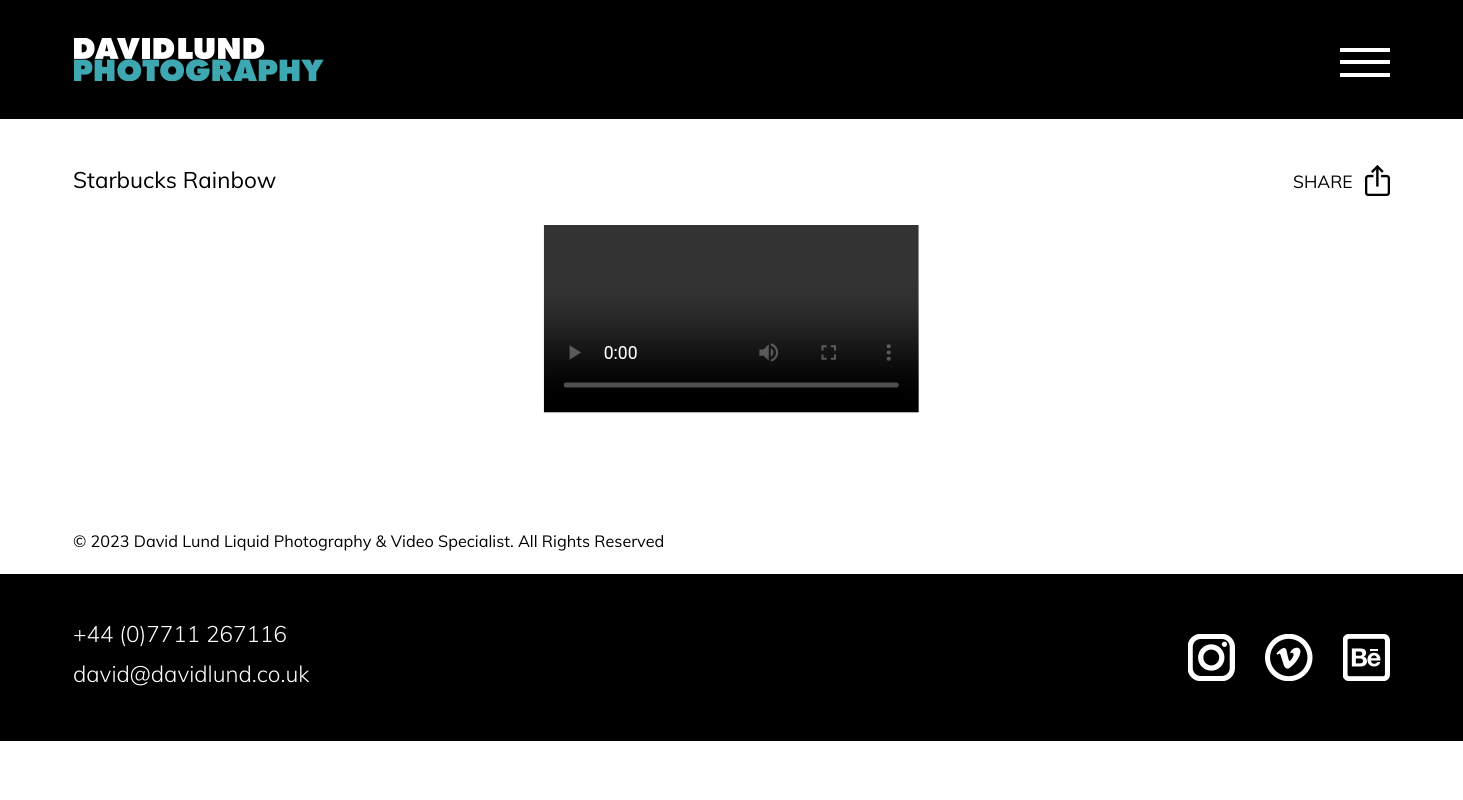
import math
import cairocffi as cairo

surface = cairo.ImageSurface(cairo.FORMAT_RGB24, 1463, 800)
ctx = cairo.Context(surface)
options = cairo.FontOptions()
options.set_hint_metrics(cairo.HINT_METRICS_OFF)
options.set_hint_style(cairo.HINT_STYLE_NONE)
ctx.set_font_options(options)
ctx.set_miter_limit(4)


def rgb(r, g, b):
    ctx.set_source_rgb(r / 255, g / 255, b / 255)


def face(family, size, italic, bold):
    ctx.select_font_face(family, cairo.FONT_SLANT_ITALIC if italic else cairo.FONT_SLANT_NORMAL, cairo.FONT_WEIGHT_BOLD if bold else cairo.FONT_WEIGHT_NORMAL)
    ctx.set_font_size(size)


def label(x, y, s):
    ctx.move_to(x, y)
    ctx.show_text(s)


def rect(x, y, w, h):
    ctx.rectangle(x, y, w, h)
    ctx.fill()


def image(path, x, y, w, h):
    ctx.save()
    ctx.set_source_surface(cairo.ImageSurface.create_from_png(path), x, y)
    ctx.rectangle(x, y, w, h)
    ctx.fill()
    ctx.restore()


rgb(255, 255, 255)
ctx.paint()
rgb(0, 0, 0)
rect(0, 0, 1463, 119)
image('image0.png', 74, 38, 250, 43)
rgb(255, 255, 255)
rect(1340, 60, 50, 4)
rect(1340, 48, 50, 4)
rect(1340, 73, 50, 4)
face('Muli', 22.5, 0, 0)
rgb(0, 0, 0)
label(73, 188, 'Starbucks Rainbow')
face('Muli', 17.5, 0, 0)
label(1293, 188, 'SHARE')
image('image1.png', 1365, 165, 25, 31)
image('image2.png', 543, 225, 376, 188)
face('Muli', 16.25, 0, 0)
label(73, 547, '© 2023 David Lund Liquid Photography & Video Specialist. All Rights Reserved')
rect(0, 574, 1463, 167)
face('Muli Light', 22.5, 0, 0)
rgb(255, 255, 255)
label(73, 642, '+44 (0)7711 267116')
label(73, 682, 'david@davidlund.co.uk')
image('image3.png', 1188, 634, 47, 47)
image('image4.png', 1265, 634, 48, 47)
image('image5.png', 1343, 634, 47, 47)
surface.write_to_png('render.png')
